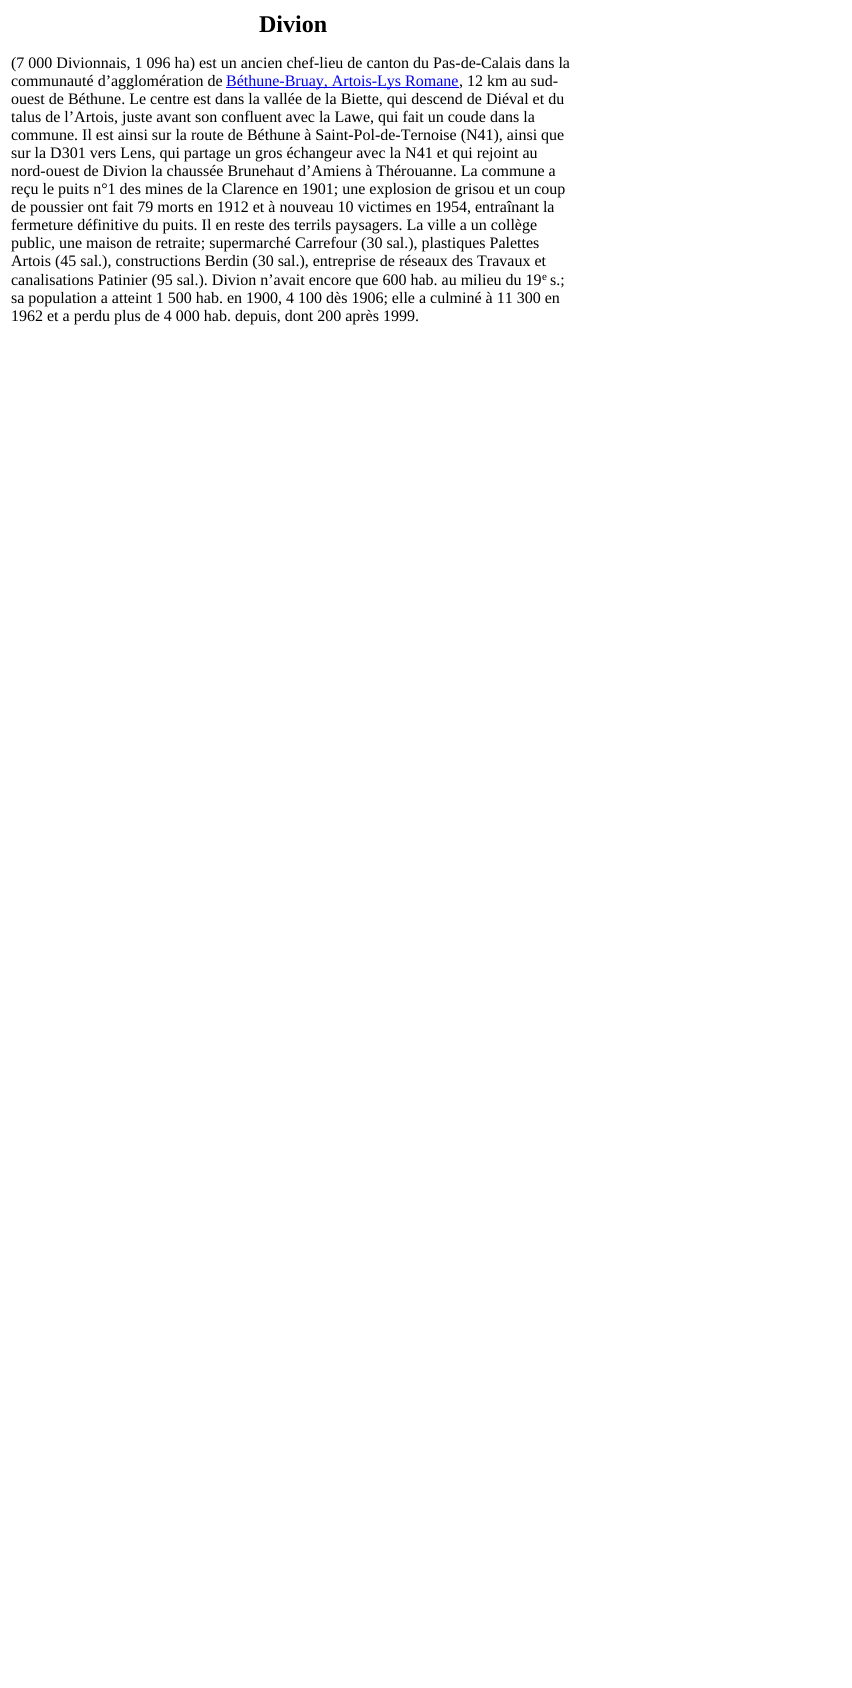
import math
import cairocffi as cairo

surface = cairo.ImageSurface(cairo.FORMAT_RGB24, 852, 1688)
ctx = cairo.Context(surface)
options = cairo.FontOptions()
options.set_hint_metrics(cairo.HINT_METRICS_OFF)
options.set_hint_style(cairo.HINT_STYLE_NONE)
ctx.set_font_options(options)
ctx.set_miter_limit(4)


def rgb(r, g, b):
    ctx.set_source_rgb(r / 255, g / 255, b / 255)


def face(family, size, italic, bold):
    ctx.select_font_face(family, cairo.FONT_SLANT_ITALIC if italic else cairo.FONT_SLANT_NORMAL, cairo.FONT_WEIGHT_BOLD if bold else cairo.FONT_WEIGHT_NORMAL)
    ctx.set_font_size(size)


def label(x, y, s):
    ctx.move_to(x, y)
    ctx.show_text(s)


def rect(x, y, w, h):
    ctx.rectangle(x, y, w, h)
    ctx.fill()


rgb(255, 255, 255)
ctx.paint()
face('Liberation Serif', 24, 0, 1)
rgb(0, 0, 0)
label(259, 32, 'Divion')
face('Liberation Serif', 16, 0, 0)
label(11, 68, '(7 000 Divionnais, 1 096 ha) est un ancien chef-lieu de canton du Pas-de-Calais dans la')
label(11, 86, 'communauté d’agglomération de')
rgb(0, 0, 238)
rect(226, 87, 233, 1)
label(226, 86, 'Béthune-Bruay, Artois-Lys Romane')
rgb(0, 0, 0)
label(459, 86, ', 12 km au sud-')
label(11, 104, 'ouest de Béthune. Le centre est dans la vallée de la Biette, qui descend de Diéval et du')
label(11, 122, 'talus de l’Artois, juste avant son confluent avec la Lawe, qui fait un coude dans la')
label(11, 140, 'commune. Il est ainsi sur la route de Béthune à Saint-Pol-de-Ternoise (N41), ainsi que')
label(11, 158, 'sur la D301 vers Lens, qui partage un gros échangeur avec la N41 et qui rejoint au')
label(11, 176, 'nord-ouest de Divion la chaussée Brunehaut d’Amiens à Thérouanne. La commune a')
label(11, 194, 'reçu le puits n°1 des mines de la Clarence en 1901; une explosion de grisou et un coup')
label(11, 212, 'de poussier ont fait 79 morts en 1912 et à nouveau 10 victimes en 1954, entraînant la')
label(11, 230, 'fermeture définitive du puits. Il en reste des terrils paysagers. La ville a un collège')
label(11, 248, 'public, une maison de retraite; supermarché Carrefour (30 sal.), plastiques Palettes')
label(11, 266, 'Artois (45 sal.), constructions Berdin (30 sal.), entreprise de réseaux des Travaux et')
label(11, 285, 'canalisations Patinier (95 sal.). Divion n’avait encore que 600 hab. au milieu du 19')
face('Liberation Serif', 11, 0, 0)
label(542, 280, 'e')
face('Liberation Serif', 16, 0, 0)
label(550, 285, 's.;')
label(11, 303, 'sa population a atteint 1 500 hab. en 1900, 4 100 dès 1906; elle a culminé à 11 300 en')
label(11, 321, '1962 et a perdu plus de 4 000 hab. depuis, dont 200 après 1999.')
surface.write_to_png('render.png')
